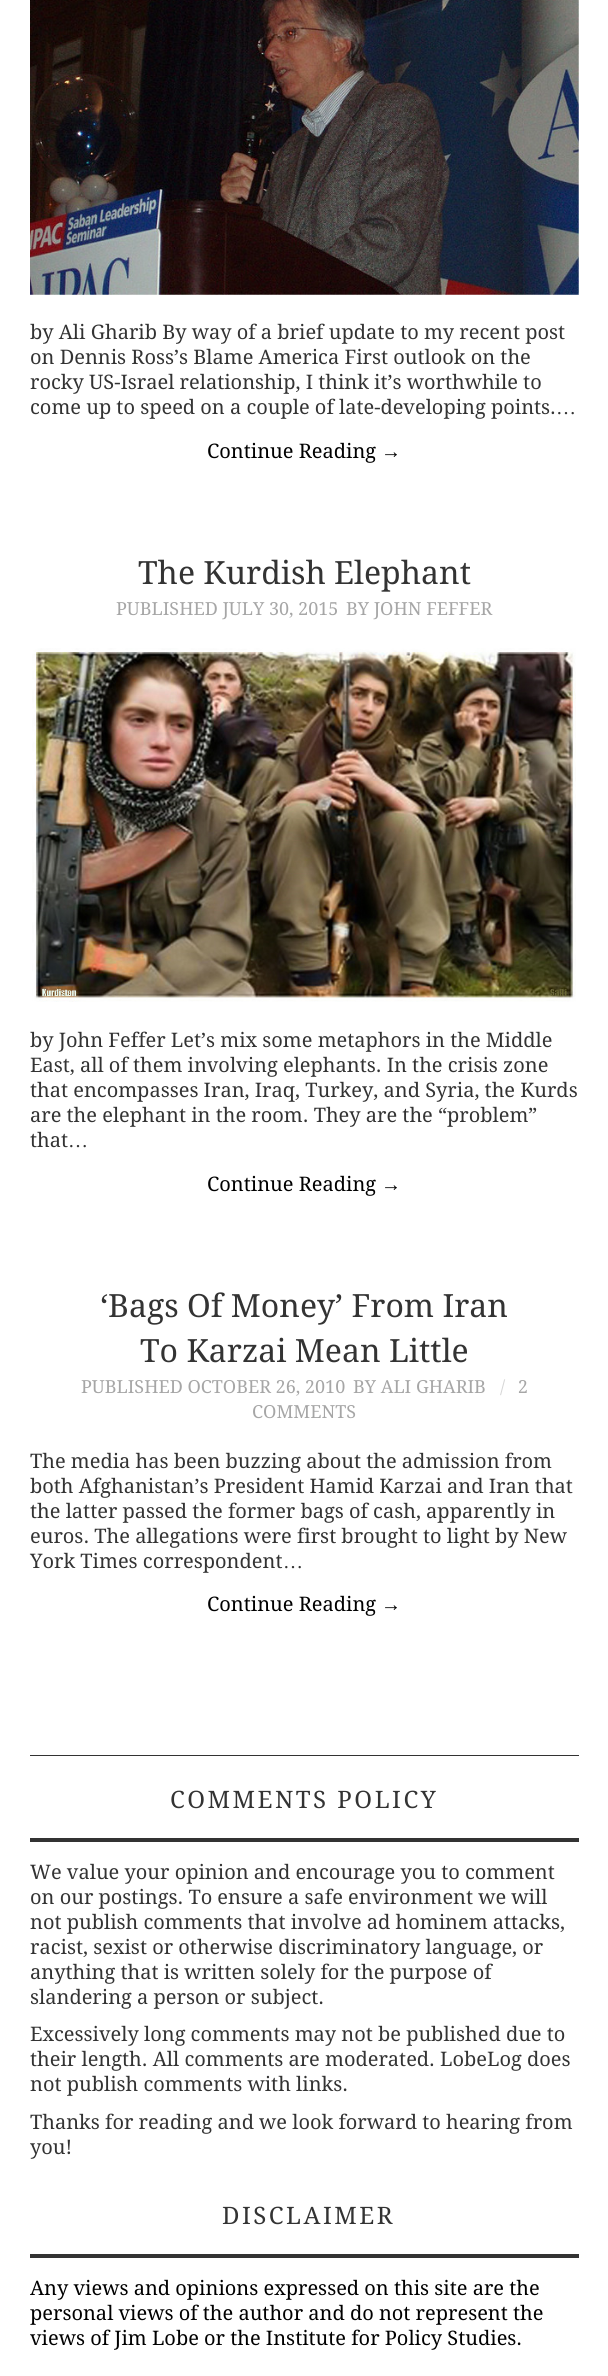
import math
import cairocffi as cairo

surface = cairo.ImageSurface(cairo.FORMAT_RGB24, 608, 2376)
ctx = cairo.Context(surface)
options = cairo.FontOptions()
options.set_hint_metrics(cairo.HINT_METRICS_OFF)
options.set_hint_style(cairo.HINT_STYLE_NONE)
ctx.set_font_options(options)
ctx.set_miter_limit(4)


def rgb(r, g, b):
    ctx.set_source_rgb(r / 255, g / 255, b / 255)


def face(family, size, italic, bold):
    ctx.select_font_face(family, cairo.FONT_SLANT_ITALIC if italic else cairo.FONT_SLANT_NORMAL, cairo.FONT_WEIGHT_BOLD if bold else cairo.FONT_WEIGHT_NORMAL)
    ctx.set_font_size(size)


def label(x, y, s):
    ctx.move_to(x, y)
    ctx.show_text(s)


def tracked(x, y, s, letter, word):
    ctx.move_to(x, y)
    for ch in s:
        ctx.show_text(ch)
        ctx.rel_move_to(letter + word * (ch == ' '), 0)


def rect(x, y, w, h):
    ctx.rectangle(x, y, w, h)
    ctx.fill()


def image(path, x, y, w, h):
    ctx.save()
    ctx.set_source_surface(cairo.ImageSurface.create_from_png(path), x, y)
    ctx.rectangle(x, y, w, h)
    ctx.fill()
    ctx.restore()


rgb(255, 255, 255)
ctx.paint()
image('image0.png', 30, 0, 549, 295)
face('Droid Serif', 20, 0, 0)
rgb(51, 51, 51)
label(30, 339, 'by Ali Gharib By way of a brief update to my recent post')
label(30, 364, 'on Dennis Ross’s Blame America First outlook on the')
label(30, 389, 'rocky US-Israel relationship, I think it’s worthwhile to')
label(30, 414, 'come up to speed on a couple of late-developing points.')
face('Liberation Serif', 20, 0, 0)
label(556, 414, '…')
face('Droid Serif', 20, 0, 0)
rgb(0, 0, 0)
label(207, 458, 'Continue Reading')
face('Liberation Serif', 20, 0, 0)
label(381, 458, '→')
face('Droid Serif', 32, 0, 0)
rgb(51, 51, 51)
label(138, 584, 'The Kurdish Elephant')
face('Droid Serif', 18, 0, 0)
rgb(166, 166, 166)
label(116, 615, 'PUBLISHED JULY 30, 2015')
label(346, 615, 'BY JOHN FEFFER')
image('image1.png', 32, 648, 544, 354)
face('Droid Serif', 20, 0, 0)
rgb(51, 51, 51)
label(30, 1047, 'by John Feffer Let’s mix some metaphors in the Middle')
label(30, 1072, 'East, all of them involving elephants. In the crisis zone')
label(30, 1097, 'that encompasses Iran, Iraq, Turkey, and Syria, the Kurds')
label(30, 1122, 'are the elephant in the room. They are the “problem”')
label(30, 1147, 'that')
face('Liberation Serif', 20, 0, 0)
label(68, 1147, '…')
face('Droid Serif', 20, 0, 0)
rgb(0, 0, 0)
label(207, 1191, 'Continue Reading')
face('Liberation Serif', 20, 0, 0)
label(381, 1191, '→')
face('Droid Serif', 32, 0, 0)
rgb(51, 51, 51)
label(100, 1317, '‘Bags Of Money’ From Iran')
label(140, 1362, 'To Karzai Mean Little')
face('Droid Serif', 18, 0, 0)
rgb(166, 166, 166)
label(81, 1393, 'PUBLISHED OCTOBER 26, 2010')
label(353, 1393, 'BY ALI GHARIB')
rgb(214, 214, 214)
label(500, 1393, '/')
rgb(166, 166, 166)
label(518, 1393, '2')
label(252, 1418, 'COMMENTS')
face('Droid Serif', 20, 0, 0)
rgb(51, 51, 51)
label(30, 1468, 'The media has been buzzing about the admission from')
label(30, 1493, 'both Afghanistan’s President Hamid Karzai and Iran that')
label(30, 1518, 'the latter passed the former bags of cash, apparently in')
label(30, 1543, 'euros. The allegations were first brought to light by New')
label(30, 1568, 'York Times correspondent')
face('Liberation Serif', 20, 0, 0)
label(283, 1568, '…')
face('Droid Serif', 20, 0, 0)
rgb(0, 0, 0)
label(207, 1611, 'Continue Reading')
face('Liberation Serif', 20, 0, 0)
label(381, 1611, '→')
rgb(51, 51, 51)
rect(30, 1755, 549, 1)
rect(30, 1838, 549, 4)
face('Droid Serif', 24, 0, 0)
tracked(170, 1808, 'COMMENTS POLICY', 2.5, 0)
face('Droid Serif', 20, 0, 0)
label(30, 1879, 'We value your opinion and encourage you to comment')
label(30, 1904, 'on our postings. To ensure a safe environment we will')
label(30, 1929, 'not publish comments that involve ad hominem attacks,')
label(30, 1954, 'racist, sexist or otherwise discriminatory language, or')
label(30, 1979, 'anything that is written solely for the purpose of')
label(30, 2004, 'slandering a person or subject.')
label(30, 2041, 'Excessively long comments may not be published due to')
label(30, 2066, 'their length. All comments are moderated. LobeLog does')
label(30, 2091, 'not publish comments with links.')
label(30, 2129, 'Thanks for reading and we look forward to hearing from')
label(30, 2154, 'you!')
rect(30, 2254, 549, 4)
face('Droid Serif', 24, 0, 0)
tracked(222, 2224, 'DISCLAIMER', 2.5, 0)
face('Droid Serif', 20, 0, 0)
rgb(0, 0, 0)
label(30, 2295, 'Any views and opinions expressed on this site are the')
label(30, 2320, 'personal views of the author and do not represent the')
label(30, 2345, 'views of Jim Lobe or the Institute for Policy Studies.')
surface.write_to_png('render.png')
